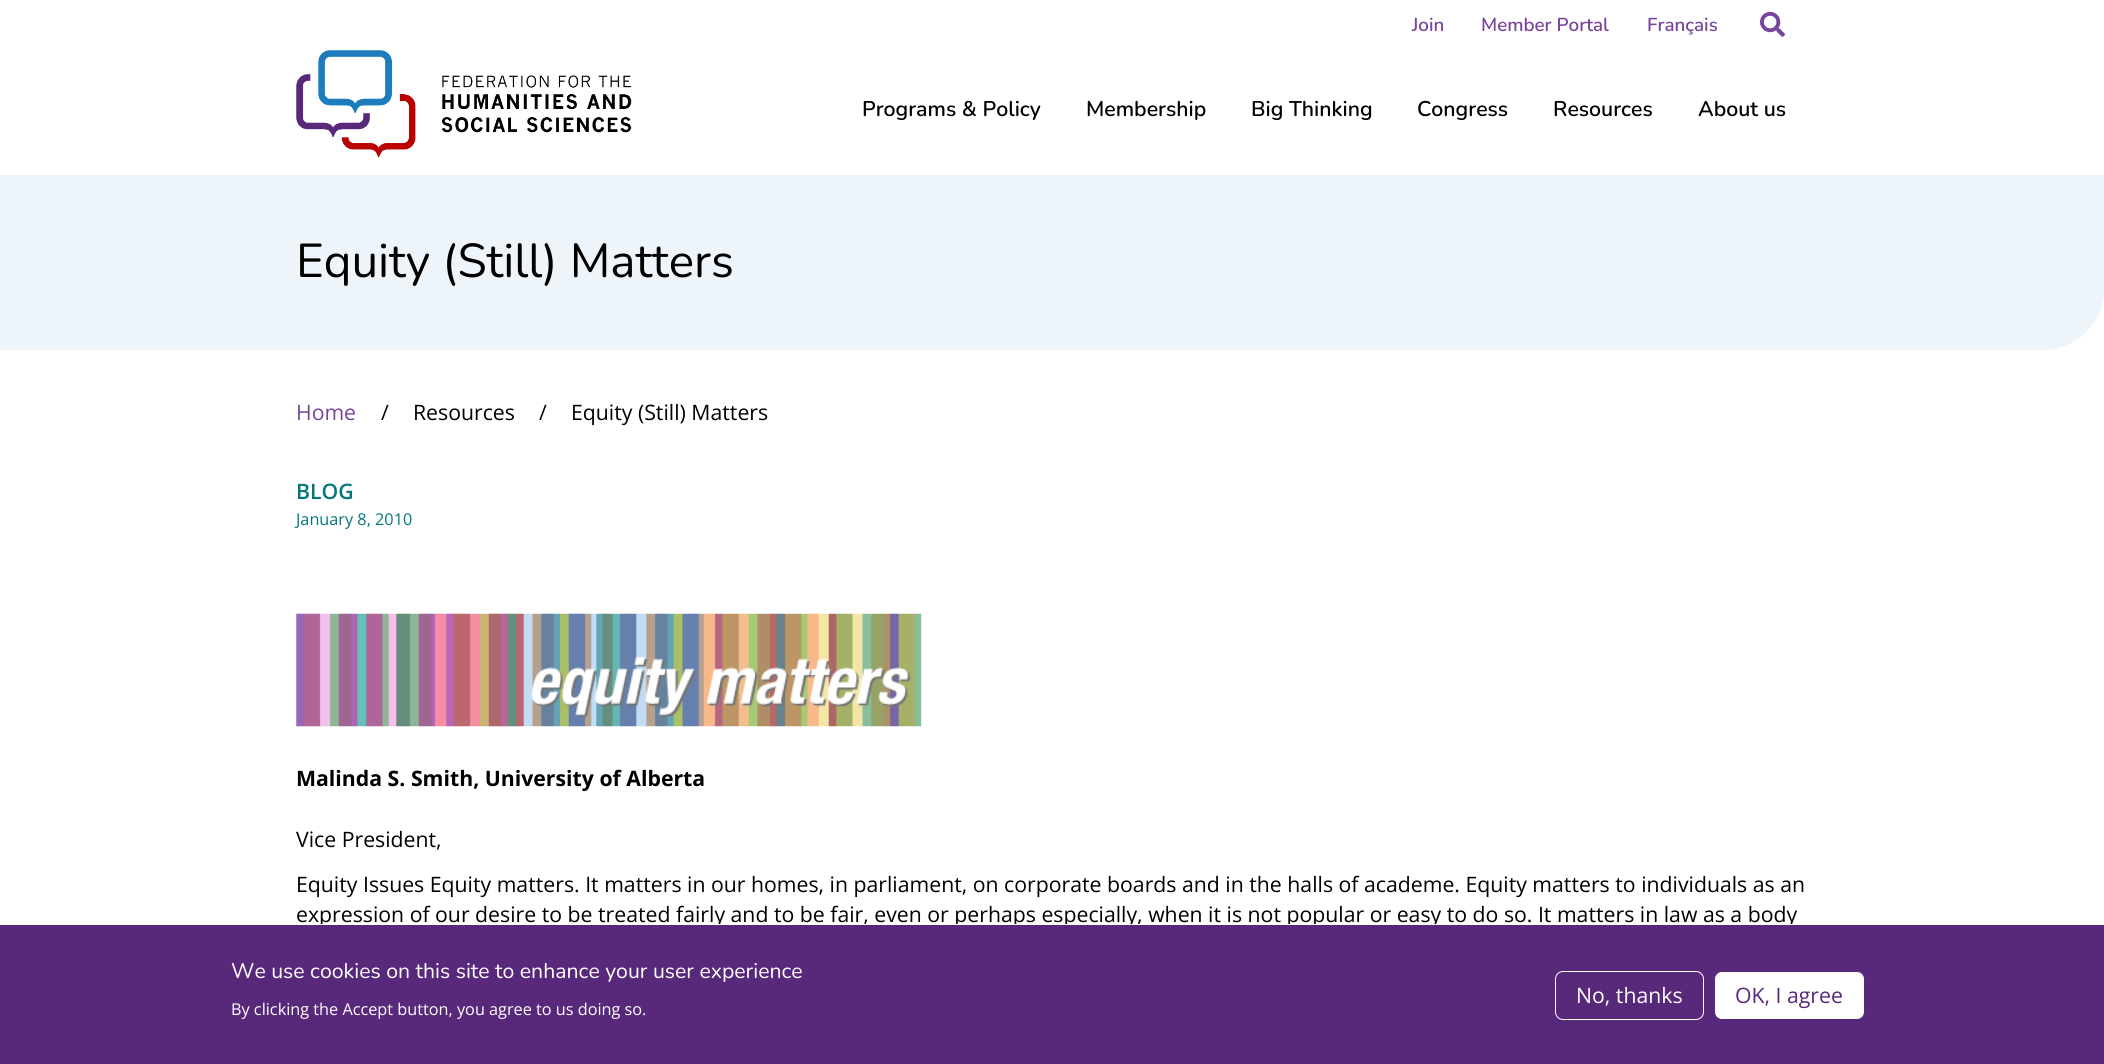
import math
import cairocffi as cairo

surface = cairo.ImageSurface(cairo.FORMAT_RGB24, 2104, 1064)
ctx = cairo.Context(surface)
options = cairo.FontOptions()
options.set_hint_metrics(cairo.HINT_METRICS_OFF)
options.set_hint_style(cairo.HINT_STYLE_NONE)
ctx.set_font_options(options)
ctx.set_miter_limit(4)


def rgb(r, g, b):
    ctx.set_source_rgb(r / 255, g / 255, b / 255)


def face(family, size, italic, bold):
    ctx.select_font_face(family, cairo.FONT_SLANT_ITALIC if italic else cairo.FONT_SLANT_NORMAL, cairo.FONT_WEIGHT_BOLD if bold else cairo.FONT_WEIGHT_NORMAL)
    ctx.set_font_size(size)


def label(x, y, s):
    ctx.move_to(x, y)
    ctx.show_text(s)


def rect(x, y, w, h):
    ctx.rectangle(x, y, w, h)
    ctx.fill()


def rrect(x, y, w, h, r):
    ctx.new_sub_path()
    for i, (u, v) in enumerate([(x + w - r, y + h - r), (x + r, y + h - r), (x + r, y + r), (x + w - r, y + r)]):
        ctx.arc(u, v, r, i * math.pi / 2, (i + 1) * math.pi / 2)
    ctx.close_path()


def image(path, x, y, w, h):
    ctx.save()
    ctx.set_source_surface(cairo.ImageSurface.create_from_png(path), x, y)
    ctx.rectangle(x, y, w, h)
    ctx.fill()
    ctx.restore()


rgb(255, 255, 255)
ctx.paint()
face('Nunito SemiBold', 18.75, 0, 0)
rgb(120, 69, 155)
label(1412, 31, 'Join')
label(1481, 31, 'Member Portal')
label(1647, 31, 'Français')
image('image0.png', 1760, 11, 25, 26)
image('image1.png', 296, 50, 336, 108)
face('Nunito SemiBold', 21.25, 0, 0)
rgb(0, 0, 0)
label(862, 116, 'Programs & Policy')
label(1086, 116, 'Membership')
label(1251, 116, 'Big Thinking')
label(1417, 116, 'Congress')
label(1553, 116, 'Resources')
label(1698, 116, 'About us')
rgb(238, 245, 250)
ctx.new_path()
ctx.move_to(0, 175)
ctx.line_to(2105, 175)
ctx.line_to(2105, 287)
ctx.curve_to(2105, 322, 2077, 350, 2042, 350)
ctx.line_to(0, 350)
ctx.close_path()
ctx.fill()
face('Nunito', 47.5, 0, 0)
rgb(0, 0, 0)
label(296, 277, 'Equity (Still) Matters')
face('Open Sans', 21.25, 0, 0)
rgb(120, 69, 155)
label(296, 420, 'Home')
rgb(0, 0, 0)
label(381, 420, '/')
label(413, 420, 'Resources')
label(539, 420, '/')
label(571, 420, 'Equity (Still) Matters')
face('Open Sans SemiBold', 21.25, 0, 0)
rgb(4, 119, 123)
label(296, 499, 'BLOG')
face('Open Sans', 16.25, 0, 0)
label(296, 525, 'January 8, 2010')
image('image2.png', 296, 613, 626, 114)
face('Open Sans', 21.25, 0, 1)
rgb(0, 0, 0)
label(296, 786, 'Malinda S. Smith, University of Alberta')
face('Open Sans', 21.25, 0, 0)
label(296, 847, 'Vice President,')
label(296, 892, 'Equity Issues Equity matters. It matters in our homes, in parliament, on corporate boards and in the halls of academe. Equity matters to individuals as an')
label(296, 922, 'expression of our desire to be treated fairly and to be fair, even or perhaps especially, when it is not popular or easy to do so. It matters in law as a body')
rgb(88, 41, 122)
rect(0, 925, 2104, 139)
rgb(255, 255, 255)
rect(321, 924, 1472, 1)
face('Nunito', 21.25, 0, 0)
label(231, 978, 'We use cookies on this site to enhance your user experience')
face('Open Sans', 16.25, 0, 0)
label(231, 1015, 'By clicking the Accept button, you agree to us doing so.')
rrect(1555.5, 971.5, 148, 48, 7.5)
ctx.set_line_width(1)
ctx.stroke()
face('Open Sans', 21.25, 0, 0)
label(1576, 1003, 'No, thanks')
rrect(1714.5, 971.5, 150, 48, 7.5)
ctx.fill_preserve()
rgb(88, 41, 122)
ctx.stroke()
label(1735, 1003, 'OK, I agree')
surface.write_to_png('render.png')
